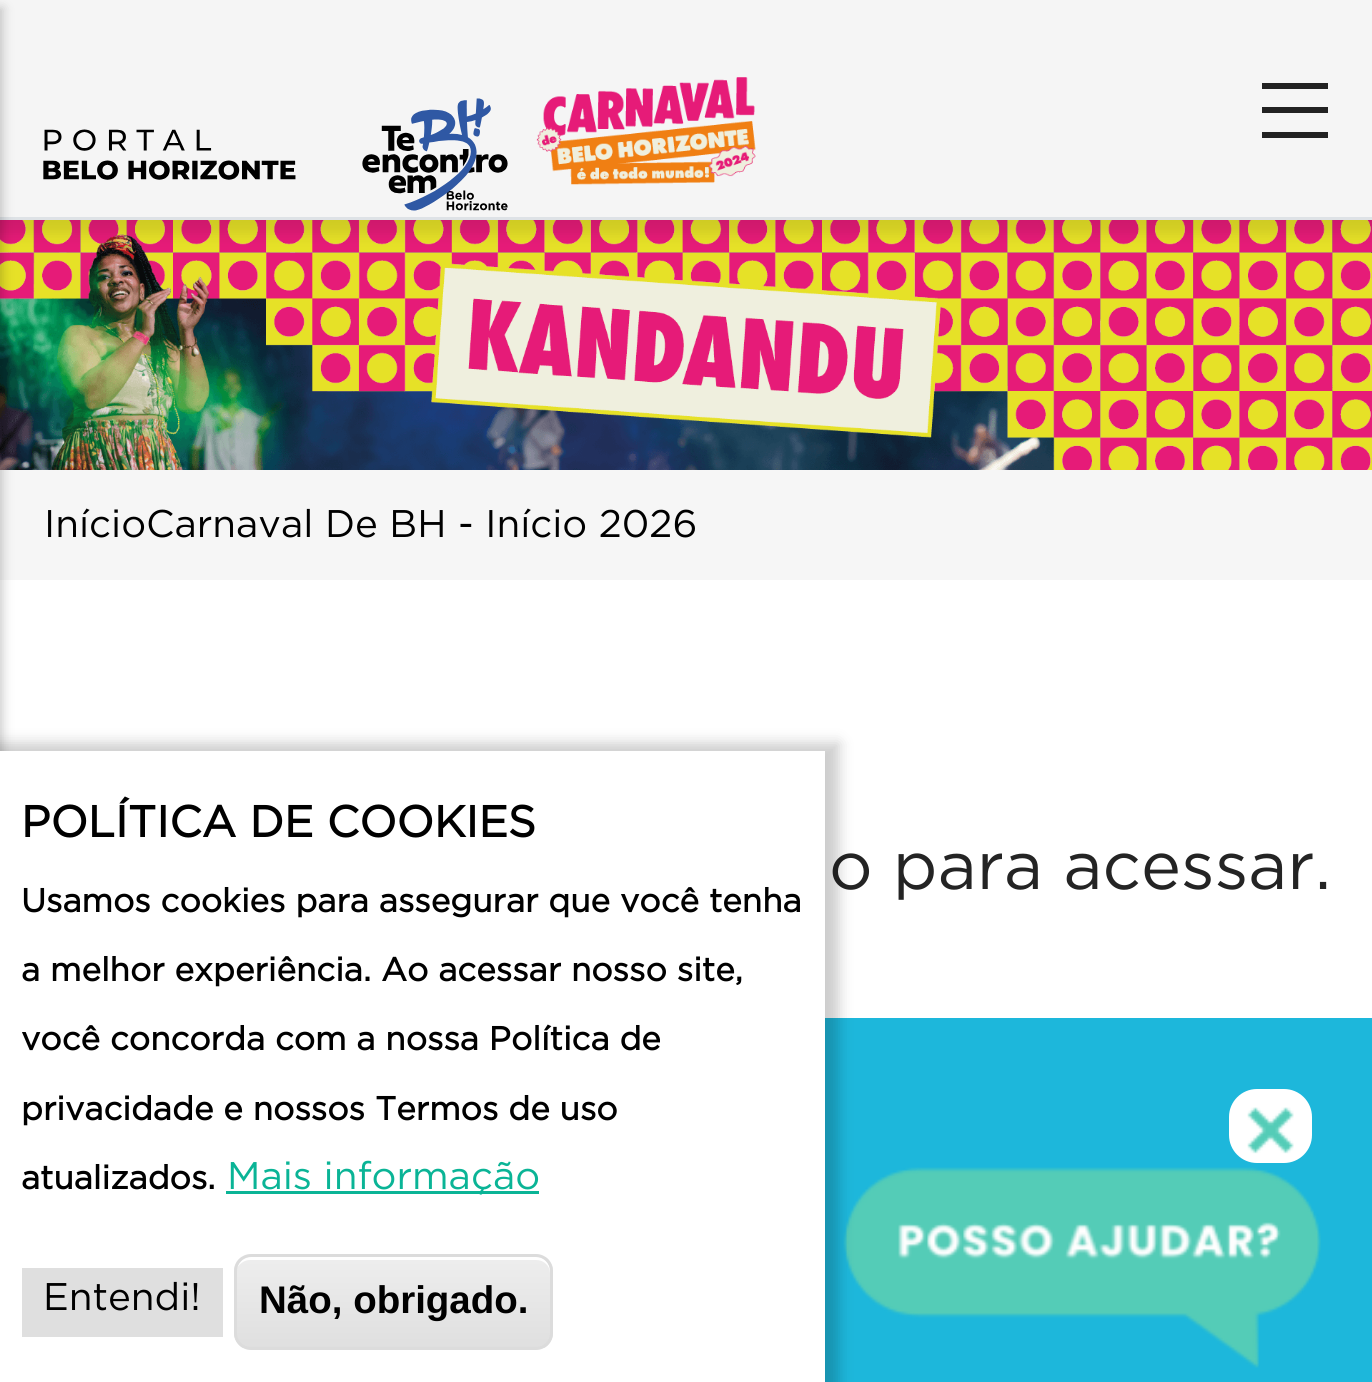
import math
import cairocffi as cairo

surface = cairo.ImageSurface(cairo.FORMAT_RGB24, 1372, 1382)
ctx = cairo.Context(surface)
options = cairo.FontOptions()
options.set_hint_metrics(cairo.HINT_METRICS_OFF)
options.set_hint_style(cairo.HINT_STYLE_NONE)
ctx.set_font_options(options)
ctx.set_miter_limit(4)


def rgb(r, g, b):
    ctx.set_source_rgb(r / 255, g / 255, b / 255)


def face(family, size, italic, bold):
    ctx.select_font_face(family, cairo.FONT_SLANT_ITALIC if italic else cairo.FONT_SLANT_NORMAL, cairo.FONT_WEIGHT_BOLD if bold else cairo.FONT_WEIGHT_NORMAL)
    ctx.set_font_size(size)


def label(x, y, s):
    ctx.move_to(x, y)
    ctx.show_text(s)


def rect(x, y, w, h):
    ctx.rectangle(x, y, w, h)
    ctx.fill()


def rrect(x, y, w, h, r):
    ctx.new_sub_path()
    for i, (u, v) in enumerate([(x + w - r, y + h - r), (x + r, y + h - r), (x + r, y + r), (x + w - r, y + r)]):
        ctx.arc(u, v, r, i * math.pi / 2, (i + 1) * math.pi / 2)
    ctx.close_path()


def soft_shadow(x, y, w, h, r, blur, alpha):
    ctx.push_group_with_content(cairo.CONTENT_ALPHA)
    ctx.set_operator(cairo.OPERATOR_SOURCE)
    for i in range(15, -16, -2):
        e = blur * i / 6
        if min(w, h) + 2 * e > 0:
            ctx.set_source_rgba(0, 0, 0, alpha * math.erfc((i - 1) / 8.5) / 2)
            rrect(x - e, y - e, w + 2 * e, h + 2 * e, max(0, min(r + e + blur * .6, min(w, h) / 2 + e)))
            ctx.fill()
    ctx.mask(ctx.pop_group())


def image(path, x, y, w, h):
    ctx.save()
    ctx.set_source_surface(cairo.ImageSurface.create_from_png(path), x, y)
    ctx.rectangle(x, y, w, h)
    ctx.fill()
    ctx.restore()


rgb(255, 255, 255)
ctx.paint()
image('image2.png', 0, 220, 1372, 250)
rgb(0, 0, 0)
soft_shadow(-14, -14, 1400, 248, 0, 7, 0.1)
rgb(245, 245, 245)
rect(0, 0, 1372, 217)
rgb(222, 226, 230)
rect(0, 217, 1372, 3)
rgb(246, 246, 246)
rect(0, 470, 1372, 110)
rgb(0, 0, 0)
soft_shadow(-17, 8, 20, 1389, 0, 5.5, 0.2)
rgb(34, 34, 34)
rect(1262, 83, 66, 6)
rect(1262, 107, 66, 6)
rect(1262, 132, 66, 6)
image('image0.png', 43, 98, 465, 113)
image('image1.png', 536, 77, 220, 108)
face('Gotham', 38.5, 0, 0)
rgb(0, 0, 0)
label(44, 537, 'InícioCarnaval De BH - Início 2026')
face('Gotham', 67.5, 0, 0)
rgb(36, 36, 36)
label(829, 889, 'o para acessar.')
rgb(29, 183, 219)
rect(825, 1018, 547, 364)
rgb(255, 255, 255)
rrect(1229, 1089, 83, 74, 28)
ctx.fill()
image('image3.png', 1247, 1107, 47, 47)
image('image4.png', 843, 1167, 478, 201)
rgb(0, 0, 0)
soft_shadow(-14, 743, 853, 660, 0, 7, 0.2)
rgb(255, 255, 255)
rect(0, 751, 825, 631)
face('Gotham', 44, 0, 1)
rgb(0, 0, 0)
label(21, 837, 'POLÍTICA DE COOKIES')
face('Gotham', 33, 0, 1)
label(21, 912, 'Usamos cookies para assegurar que você tenha')
label(21, 981, 'a melhor experiência. Ao acessar nosso site,')
label(21, 1050, 'você concorda com a nossa Política de')
label(21, 1120, 'privacidade e nossos Termos de uso')
label(21, 1189, 'atualizados.')
rgb(10, 180, 150)
rect(226, 1191, 313, 3)
face('Gotham', 38.5, 0, 0)
label(227, 1189, 'Mais informação')
rgb(223, 223, 223)
rect(22, 1268, 201, 69)
rgb(0, 0, 0)
label(43, 1310, 'Entendi!')
ctx.save()
rrect(234, 1254, 319, 96, 17)
ctx.clip()
gradient = cairo.LinearGradient(393, 1257, 393, 1348)
gradient.add_color_stop_rgba(0.05, 0.929, 0.929, 0.929, 1)
gradient.add_color_stop_rgba(1, 0.875, 0.875, 0.875, 1)
ctx.set_source(gradient)
rect(234, 1257, 319, 91)
ctx.restore()
rgb(255, 255, 255)
ctx.new_path()
ctx.move_to(250, 1260)
ctx.line_to(536, 1260)
ctx.curve_to(544, 1260, 550, 1266, 550, 1273)
ctx.line_to(550, 1271)
ctx.curve_to(550, 1263, 544, 1257, 536, 1257)
ctx.line_to(251, 1257)
ctx.curve_to(244, 1257, 239, 1262, 237, 1268)
ctx.curve_to(240, 1263, 245, 1260, 250, 1260)
ctx.close_path()
ctx.fill()
rrect(235.5, 1255.5, 316, 93, 15.5)
rgb(220, 220, 220)
ctx.set_line_width(3)
ctx.stroke()
face('Liberation Sans', 38.5, 0, 1)
rgb(0, 0, 0)
label(259, 1313, 'Não, obrigado.')
surface.write_to_png('render.png')
